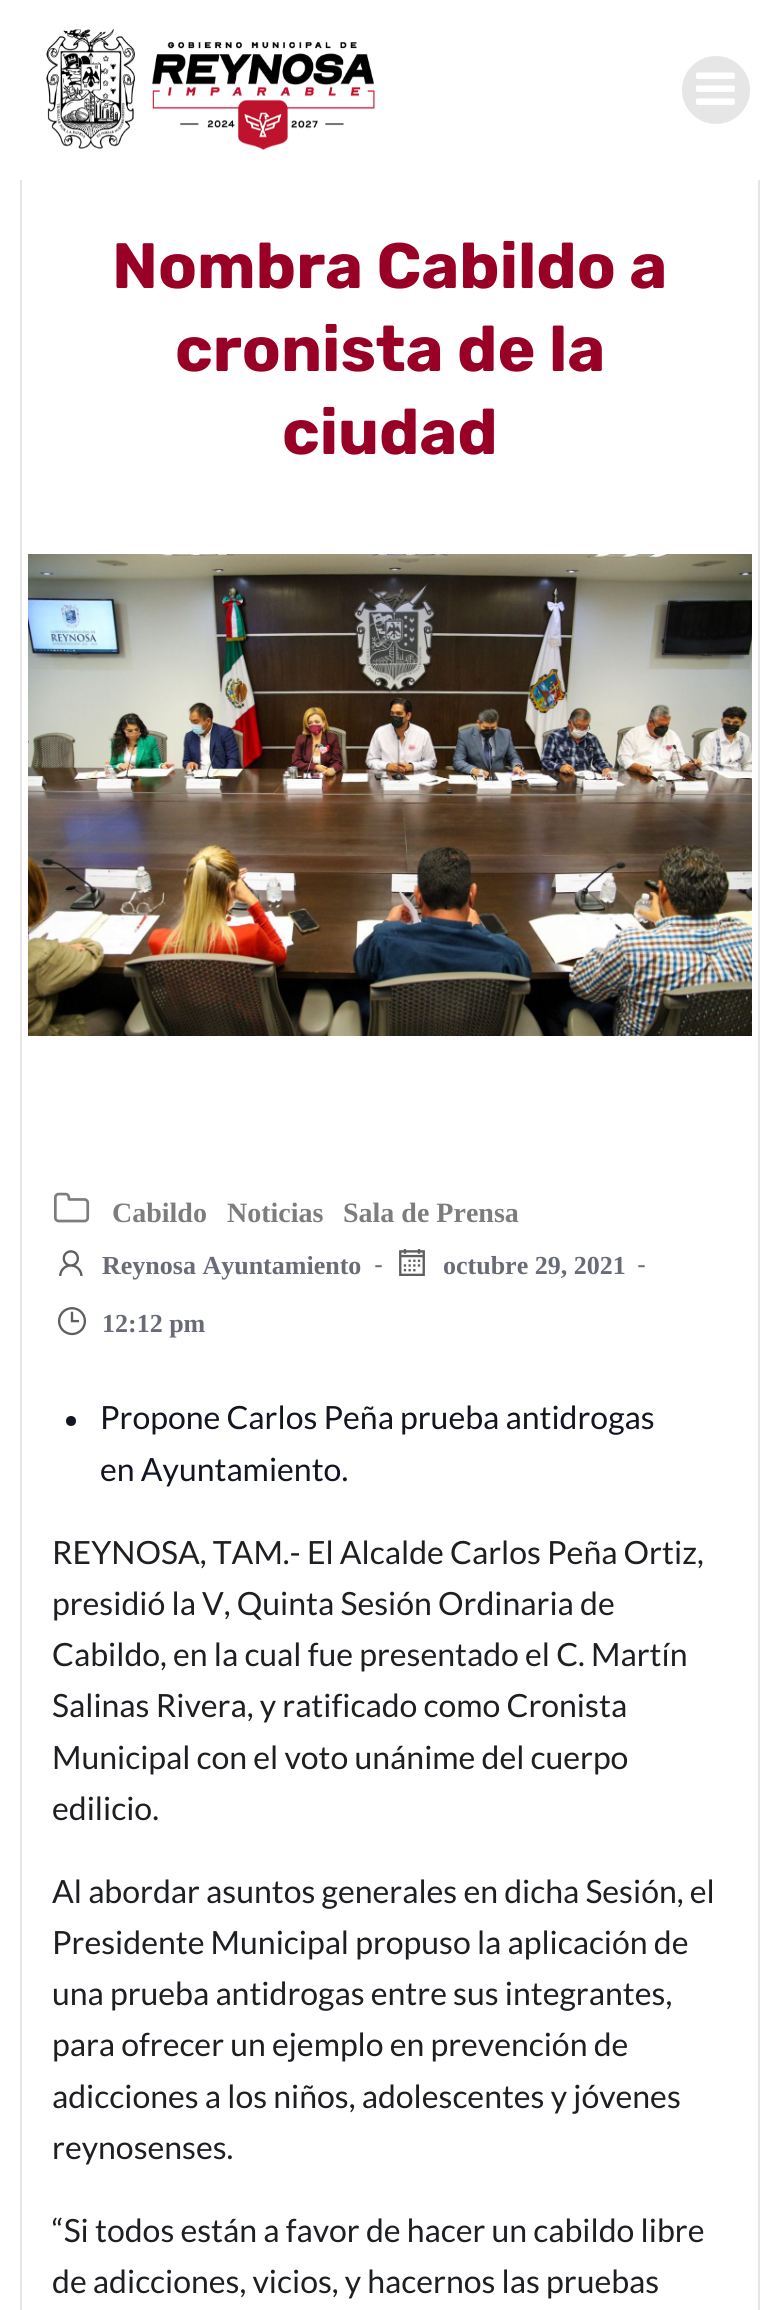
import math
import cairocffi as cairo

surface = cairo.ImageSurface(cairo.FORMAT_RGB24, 780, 2310)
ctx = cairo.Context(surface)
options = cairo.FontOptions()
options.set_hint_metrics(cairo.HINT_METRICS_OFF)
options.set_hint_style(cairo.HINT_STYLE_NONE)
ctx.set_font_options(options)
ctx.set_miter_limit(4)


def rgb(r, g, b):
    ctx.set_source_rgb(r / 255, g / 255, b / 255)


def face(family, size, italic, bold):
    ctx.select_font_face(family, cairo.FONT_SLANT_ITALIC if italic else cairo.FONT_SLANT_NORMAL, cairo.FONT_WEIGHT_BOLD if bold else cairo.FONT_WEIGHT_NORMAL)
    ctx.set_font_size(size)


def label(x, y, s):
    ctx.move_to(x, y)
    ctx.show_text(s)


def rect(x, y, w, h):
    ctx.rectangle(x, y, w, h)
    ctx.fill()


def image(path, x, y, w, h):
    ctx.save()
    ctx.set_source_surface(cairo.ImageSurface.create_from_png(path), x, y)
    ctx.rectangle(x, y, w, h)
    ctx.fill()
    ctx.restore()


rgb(255, 255, 255)
ctx.paint()
image('image0.png', 46, 29, 329, 121)
rgb(230, 230, 230)
ctx.arc(716, 90, 34, 0, 2 * math.pi)
ctx.fill()
image('image1.png', 696, 72, 39, 33)
rect(758, 180, 2, 2130)
rect(20, 180, 2, 2130)
face('Rubik', 64, 0, 1)
rgb(152, 0, 37)
label(112, 288, 'Nombra Cabildo a')
label(175, 371, 'cronista de la')
label(282, 454, 'ciudad')
image('image2.png', 28, 554, 724, 482)
image('image3.png', 54, 1192, 36, 31)
face('Liberation Serif', 28, 0, 1)
rgb(126, 125, 125)
label(112, 1222, 'Cabildo')
label(227, 1222, 'Noticias')
label(343, 1222, 'Sala de Prensa')
image('image4.png', 59, 1250, 24, 26)
face('Liberation Serif', 26, 0, 1)
rgb(105, 108, 119)
label(102, 1274, 'Reynosa Ayuntamiento')
face('Lato', 26, 0, 0)
label(374, 1274, '-')
image('image5.png', 399, 1249, 26, 27)
face('Liberation Serif', 26, 0, 1)
label(443, 1274, 'octubre 29, 2021')
face('Lato', 26, 0, 0)
label(637, 1274, '-')
image('image6.png', 57, 1307, 30, 29)
face('Liberation Serif', 26, 0, 1)
label(102, 1332, '12:12 pm')
rgb(19, 22, 34)
ctx.new_path()
ctx.arc(71, 1421, 5, 0, 2 * math.pi)
ctx.fill()
face('Lato', 32, 0, 0)
label(100, 1429, 'Propone Carlos Peña prueba antidrogas')
label(100, 1481, 'en Ayuntamiento.')
rgb(30, 31, 34)
label(52, 1564, 'REYNOSA, TAM.- El Alcalde Carlos Peña Ortiz,')
label(52, 1615, 'presidió la V, Quinta Sesión Ordinaria de')
label(52, 1666, 'Cabildo, en la cual fue presentado el C. Martín')
label(52, 1717, 'Salinas Rivera, y ratificado como Cronista')
label(52, 1769, 'Municipal con el voto unánime del cuerpo')
label(52, 1820, 'edilicio.')
label(52, 1903, 'Al abordar asuntos generales en dicha Sesión, el')
label(52, 1954, 'Presidente Municipal propuso la aplicación de')
label(52, 2005, 'una prueba antidrogas entre sus integrantes,')
label(52, 2056, 'para ofrecer un ejemplo en prevención de')
label(52, 2108, 'adicciones a los niños, adolescentes y jóvenes')
label(52, 2159, 'reynosenses.')
label(52, 2242, '“Si todos están a favor de hacer un cabildo libre')
label(52, 2293, 'de adicciones, vicios, y hacernos las pruebas')
surface.write_to_png('render.png')
